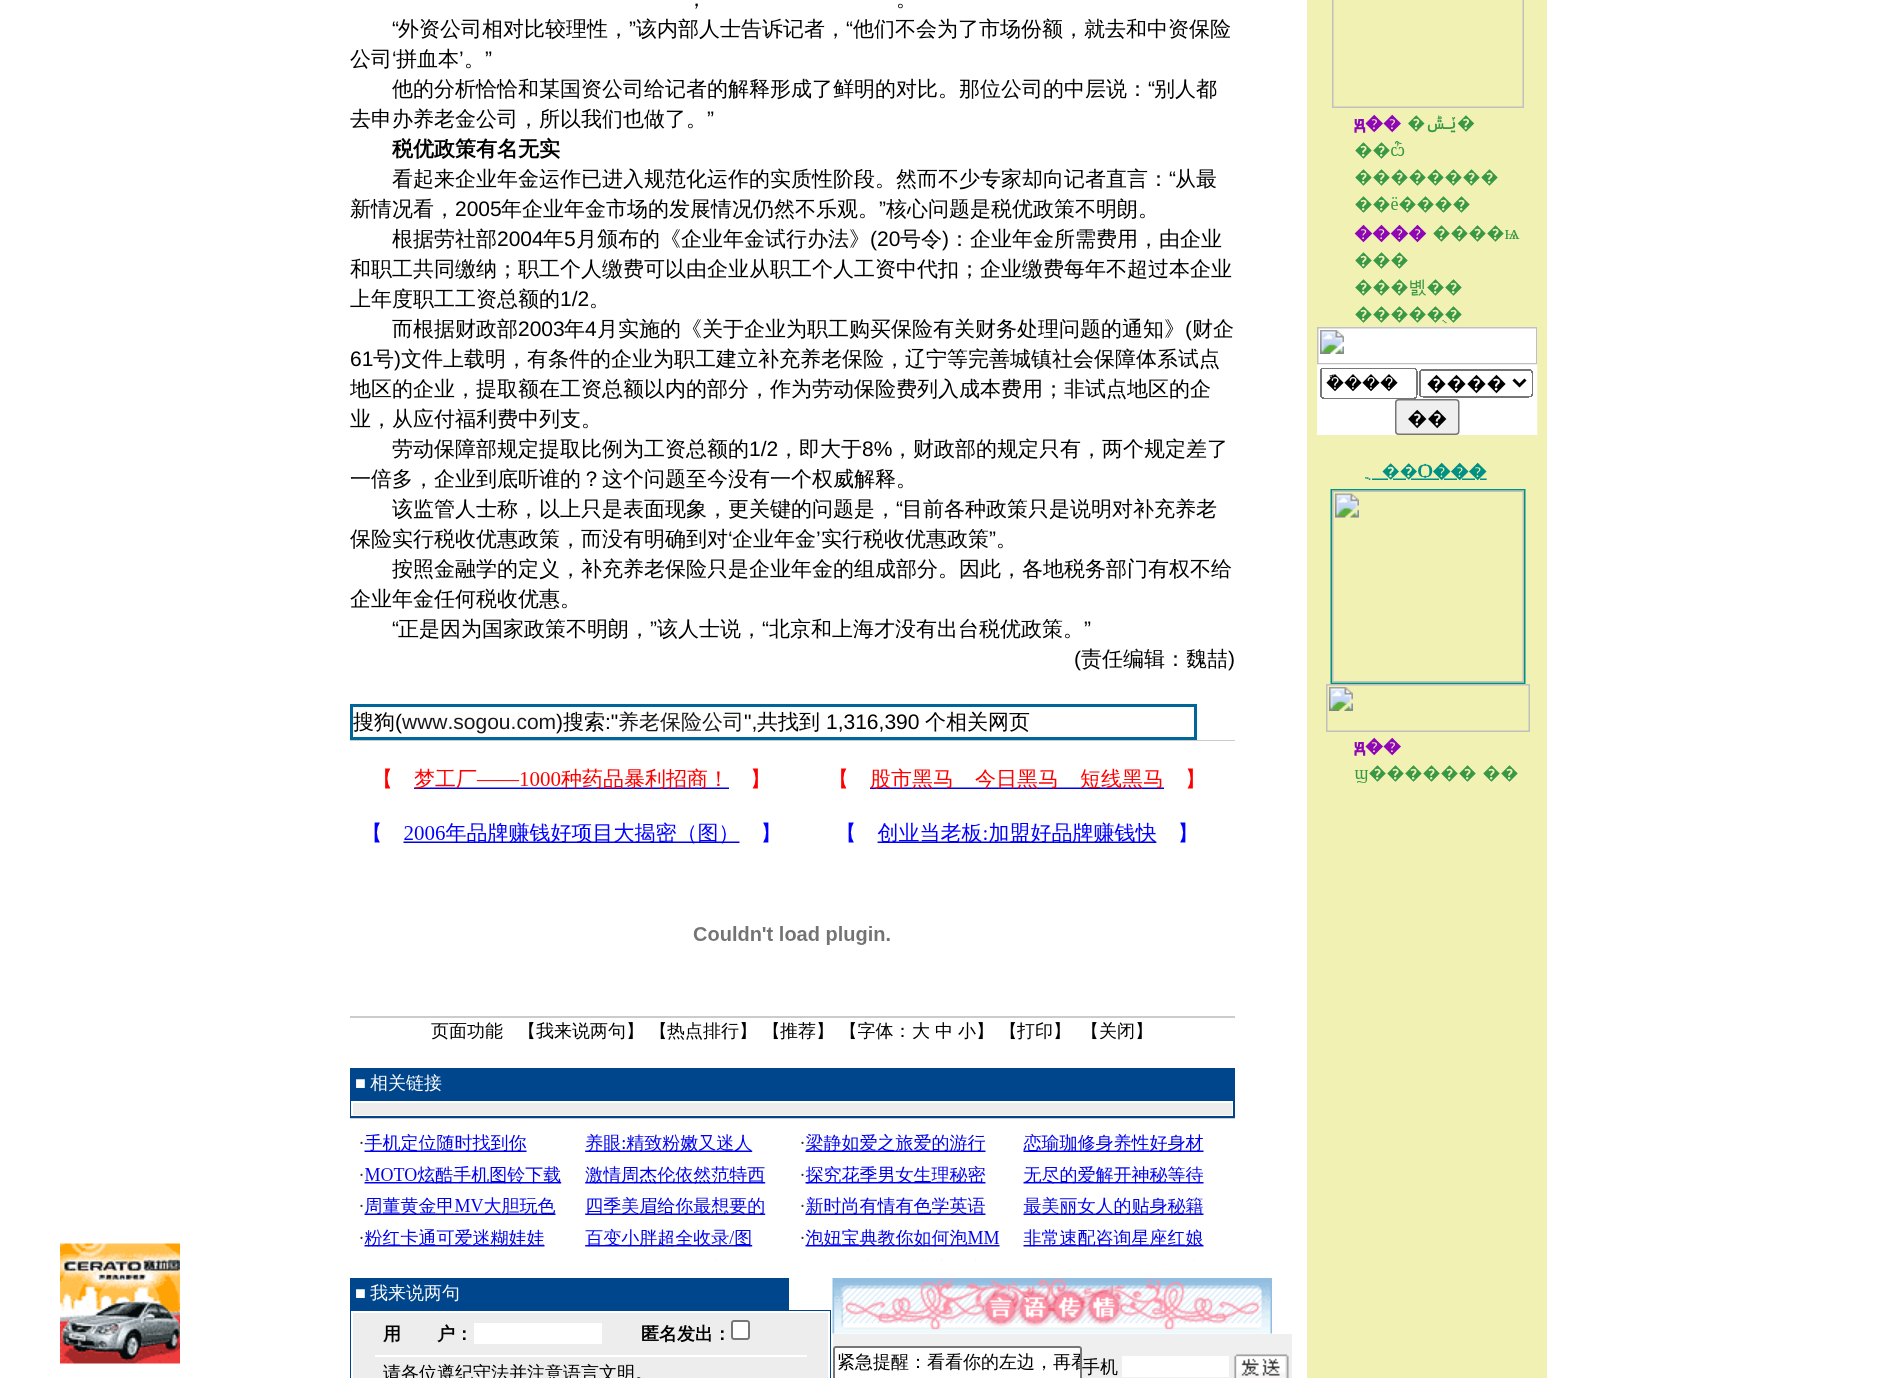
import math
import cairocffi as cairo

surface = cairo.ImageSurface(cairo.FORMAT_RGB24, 1896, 1378)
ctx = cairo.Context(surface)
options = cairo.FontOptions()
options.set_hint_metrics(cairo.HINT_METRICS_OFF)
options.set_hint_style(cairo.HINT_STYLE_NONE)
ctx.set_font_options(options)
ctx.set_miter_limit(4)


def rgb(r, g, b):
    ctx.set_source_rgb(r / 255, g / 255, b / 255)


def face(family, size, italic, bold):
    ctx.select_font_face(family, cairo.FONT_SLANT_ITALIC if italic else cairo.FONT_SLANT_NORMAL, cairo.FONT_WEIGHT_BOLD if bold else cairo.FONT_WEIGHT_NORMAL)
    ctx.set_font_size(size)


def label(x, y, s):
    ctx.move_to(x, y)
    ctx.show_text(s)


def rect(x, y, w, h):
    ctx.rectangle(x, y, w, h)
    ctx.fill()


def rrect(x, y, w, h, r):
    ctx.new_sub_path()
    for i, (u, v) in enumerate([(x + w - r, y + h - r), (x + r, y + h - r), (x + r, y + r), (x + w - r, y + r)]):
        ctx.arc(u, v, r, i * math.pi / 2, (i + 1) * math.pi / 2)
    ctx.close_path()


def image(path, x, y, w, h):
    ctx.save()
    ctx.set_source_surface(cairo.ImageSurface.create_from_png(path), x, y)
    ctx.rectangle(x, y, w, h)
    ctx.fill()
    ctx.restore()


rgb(255, 255, 255)
ctx.paint()
image('image0.png', 60, 1243, 120, 121)
face('WenQuanYi Zen Hei Medium', 21, 0, 0)
rgb(0, 0, 0)
label(686, 6, '，')
label(896, 6, '。')
face('Liberation Sans', 21, 0, 0)
label(392, 36, '“')
face('WenQuanYi Zen Hei Medium', 21, 0, 0)
label(398, 36, '外资公司相对比较理性，')
face('Liberation Sans', 21, 0, 0)
label(629, 36, '”')
face('WenQuanYi Zen Hei Medium', 21, 0, 0)
label(636, 36, '该内部人士告诉记者，')
face('Liberation Sans', 21, 0, 0)
label(846, 36, '“')
face('WenQuanYi Zen Hei Medium', 21, 0, 0)
label(853, 36, '他们不会为了市场份额，就去和中资保险')
label(350, 66, '公司')
face('Liberation Sans', 21, 0, 0)
label(392, 66, '‘')
face('WenQuanYi Zen Hei Medium', 21, 0, 0)
label(396, 66, '拼血本')
face('Liberation Sans', 21, 0, 0)
label(459, 66, '’')
label(485, 66, '”')
face('WenQuanYi Zen Hei Medium', 21, 0, 0)
label(464, 66, '。')
label(392, 96, '他的分析恰恰和某国资公司给记者的解释形成了鲜明的对比。那位公司的中层说：')
face('Liberation Sans', 21, 0, 0)
label(1148, 96, '“')
face('WenQuanYi Zen Hei Medium', 21, 0, 0)
label(1154, 96, '别人都')
label(350, 126, '去申办养老金公司，所以我们也做了。')
face('Liberation Sans', 21, 0, 0)
label(707, 126, '”')
face('WenQuanYi Zen Hei', 21, 0, 1)
label(392, 156, '税优政策有名无实')
face('WenQuanYi Zen Hei Medium', 21, 0, 0)
label(392, 186, '看起来企业年金运作已进入规范化运作的实质性阶段。然而不少专家却向记者直言：')
face('Liberation Sans', 21, 0, 0)
label(1169, 186, '“')
face('WenQuanYi Zen Hei Medium', 21, 0, 0)
label(1175, 186, '从最')
label(350, 216, '新情况看，')
face('Liberation Sans', 21, 0, 0)
label(455, 216, '2005')
face('WenQuanYi Zen Hei Medium', 21, 0, 0)
label(501, 216, '年企业年金市场的发展情况仍然不乐观。')
face('Liberation Sans', 21, 0, 0)
label(879, 216, '”')
face('WenQuanYi Zen Hei Medium', 21, 0, 0)
label(886, 216, '核心问题是税优政策不明朗。')
label(392, 246, '根据劳社部')
face('Liberation Sans', 21, 0, 0)
label(497, 246, '2004')
face('WenQuanYi Zen Hei Medium', 21, 0, 0)
label(543, 246, '年')
face('Liberation Sans', 21, 0, 0)
label(564, 246, '5')
face('WenQuanYi Zen Hei Medium', 21, 0, 0)
label(576, 246, '月颁布的《企业年金试行办法》')
face('Liberation Sans', 21, 0, 0)
label(870, 246, '(20')
face('WenQuanYi Zen Hei Medium', 21, 0, 0)
label(900, 246, '号令')
face('Liberation Sans', 21, 0, 0)
label(942, 246, ')')
face('WenQuanYi Zen Hei Medium', 21, 0, 0)
label(949, 246, '：企业年金所需费用，由企业')
label(350, 276, '和职工共同缴纳；职工个人缴费可以由企业从职工个人工资中代扣；企业缴费每年不超过本企业')
label(350, 306, '上年度职工工资总额的')
face('Liberation Sans', 21, 0, 0)
label(560, 306, '1/2')
face('WenQuanYi Zen Hei Medium', 21, 0, 0)
label(589, 306, '。')
label(392, 336, '而根据财政部')
face('Liberation Sans', 21, 0, 0)
label(518, 336, '2003')
face('WenQuanYi Zen Hei Medium', 21, 0, 0)
label(564, 336, '年')
face('Liberation Sans', 21, 0, 0)
label(585, 336, '4')
face('WenQuanYi Zen Hei Medium', 21, 0, 0)
label(597, 336, '月实施的《关于企业为职工购买保险有关财务处理问题的通知》')
face('Liberation Sans', 21, 0, 0)
label(1185, 336, '(')
face('WenQuanYi Zen Hei Medium', 21, 0, 0)
label(1192, 336, '财企')
face('Liberation Sans', 21, 0, 0)
label(350, 366, '61')
face('WenQuanYi Zen Hei Medium', 21, 0, 0)
label(373, 366, '号')
face('Liberation Sans', 21, 0, 0)
label(394, 366, ')')
face('WenQuanYi Zen Hei Medium', 21, 0, 0)
label(401, 366, '文件上载明，有条件的企业为职工建立补充养老保险，辽宁等完善城镇社会保障体系试点')
label(350, 396, '地区的企业，提取额在工资总额以内的部分，作为劳动保险费列入成本费用；非试点地区的企')
label(350, 426, '业，从应付福利费中列支。')
label(392, 456, '劳动保障部规定提取比例为工资总额的')
face('Liberation Sans', 21, 0, 0)
label(749, 456, '1/2')
face('WenQuanYi Zen Hei Medium', 21, 0, 0)
label(778, 456, '，即大于')
face('Liberation Sans', 21, 0, 0)
label(862, 456, '8%')
face('WenQuanYi Zen Hei Medium', 21, 0, 0)
label(892, 456, '，财政部的规定只有，两个规定差了')
label(350, 486, '一倍多，企业到底听谁的？这个问题至今没有一个权威解释。')
label(392, 516, '该监管人士称，以上只是表面现象，更关键的问题是，')
face('Liberation Sans', 21, 0, 0)
label(896, 516, '“')
face('WenQuanYi Zen Hei Medium', 21, 0, 0)
label(902, 516, '目前各种政策只是说明对补充养老')
label(350, 546, '保险实行税收优惠政策，而没有明确到对')
face('Liberation Sans', 21, 0, 0)
label(728, 546, '‘')
face('WenQuanYi Zen Hei Medium', 21, 0, 0)
label(732, 546, '企业年金')
face('Liberation Sans', 21, 0, 0)
label(816, 546, '’')
face('WenQuanYi Zen Hei Medium', 21, 0, 0)
label(821, 546, '实行税收优惠政策')
face('Liberation Sans', 21, 0, 0)
label(989, 546, '”')
face('WenQuanYi Zen Hei Medium', 21, 0, 0)
label(996, 546, '。')
label(392, 576, '按照金融学的定义，补充养老保险只是企业年金的组成部分。因此，各地税务部门有权不给')
label(350, 606, '企业年金任何税收优惠。')
face('Liberation Sans', 21, 0, 0)
label(392, 636, '“')
face('WenQuanYi Zen Hei Medium', 21, 0, 0)
label(398, 636, '正是因为国家政策不明朗，')
face('Liberation Sans', 21, 0, 0)
label(650, 636, '”')
face('WenQuanYi Zen Hei Medium', 21, 0, 0)
label(657, 636, '该人士说，')
face('Liberation Sans', 21, 0, 0)
label(762, 636, '“')
face('WenQuanYi Zen Hei Medium', 21, 0, 0)
label(769, 636, '北京和上海才没有出台税优政策。')
face('Liberation Sans', 21, 0, 0)
label(1084, 636, '”')
label(1074, 666, '(')
face('WenQuanYi Zen Hei Medium', 21, 0, 0)
label(1081, 666, '责任编辑：魏喆')
face('Liberation Sans', 21, 0, 0)
label(1228, 666, ')')
rgb(0, 102, 153)
rect(350, 704, 847, 36)
rgb(255, 255, 255)
rect(353, 707, 841, 30)
face('WenQuanYi Zen Hei Medium', 21, 0, 0)
rgb(0, 0, 0)
label(353, 729, '搜狗')
face('Liberation Sans', 21, 0, 0)
label(395, 729, '(')
rgb(25, 25, 25)
label(402, 729, 'www.sogou.com')
rgb(0, 0, 0)
label(556, 729, ')')
face('WenQuanYi Zen Hei Medium', 21, 0, 0)
label(563, 729, '搜索')
face('Liberation Sans', 21, 0, 0)
label(605, 729, ':"')
face('WenQuanYi Zen Hei Medium', 21, 0, 0)
rgb(25, 25, 25)
label(618, 729, '养老保险公司')
face('Liberation Sans', 21, 0, 0)
rgb(0, 0, 0)
label(744, 729, '",')
face('WenQuanYi Zen Hei Medium', 21, 0, 0)
label(757, 729, '共找到')
face('Liberation Sans', 21, 0, 0)
label(826, 729, '1,316,390')
face('WenQuanYi Zen Hei Medium', 21, 0, 0)
label(925, 729, '个相关网页')
rgb(204, 204, 204)
rect(350, 740, 885, 1)
image('image1.png', 374, 768, 395, 76)
image('image2.png', 841, 768, 352, 75)
image('image3.png', 693, 926, 197, 19)
rect(350, 1016, 885, 2)
face('WenQuanYi Zen Hei Medium', 18, 0, 0)
rgb(0, 0, 0)
label(431, 1037, '页面功能')
label(518, 1037, '【我来说两句')
label(626, 1037, '】 【')
label(667, 1037, '热点排行')
label(739, 1037, '】 【')
label(780, 1037, '推荐')
label(816, 1037, '】 【字体：')
label(912, 1037, '大')
label(935, 1037, '中')
label(958, 1037, '小')
label(976, 1037, '】 【')
label(1017, 1037, '打印】')
label(1081, 1037, '【关闭】')
rgb(0, 70, 140)
rect(350, 1068, 885, 50)
face('Liberation Sans', 18, 0, 0)
rgb(255, 255, 255)
label(355, 1089, '■')
face('WenQuanYi Zen Hei Medium', 18, 0, 0)
label(370, 1089, '相关链接')
rect(351, 1101, 882, 15)
rgb(237, 237, 237)
rect(353, 1103, 879, 12)
rgb(204, 204, 204)
rect(350, 1118, 885, 1)
image('image4.png', 360, 1133, 406, 127)
image('image5.png', 801, 1133, 403, 127)
rgb(0, 70, 140)
rect(350, 1278, 439, 32)
face('Liberation Sans', 18, 0, 0)
rgb(255, 255, 255)
label(355, 1299, '■')
face('WenQuanYi Zen Hei Medium', 18, 0, 0)
label(370, 1299, '我来说两句')
rgb(0, 70, 140)
rect(350, 1310, 481, 68)
rgb(255, 255, 255)
rect(351, 1311, 479, 67)
rgb(237, 237, 237)
rect(353, 1313, 475, 65)
face('WenQuanYi Zen Hei', 18, 0, 1)
rgb(0, 0, 0)
label(383, 1340, '用　　户：')
rgb(255, 255, 255)
rect(474, 1323, 128, 21)
rgb(0, 0, 0)
label(641, 1340, '匿名发出：')
rgb(255, 255, 255)
rrect(732, 1321, 17, 18, 2)
ctx.fill_preserve()
rgb(118, 118, 118)
ctx.stroke()
rgb(255, 255, 255)
rect(375, 1355, 432, 2)
face('WenQuanYi Zen Hei Medium', 18, 0, 0)
rgb(0, 0, 0)
label(383, 1379, '请各位遵纪守法并注意语言文明。')
image('image6.png', 832, 1278, 440, 56)
rgb(239, 239, 239)
rect(833, 1334, 459, 44)
rgb(0, 0, 0)
label(1082, 1373, '手机')
rgb(255, 255, 255)
rrect(834, 1347, 247, 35, 2)
ctx.fill_preserve()
rgb(118, 118, 118)
ctx.stroke()
ctx.save()
ctx.rectangle(834, 1347, 246, 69)
ctx.clip()
rgb(0, 0, 0)
label(837, 1368, '紧急提醒：看看你的左边，再看')
ctx.restore()
rgb(255, 255, 255)
rect(1122, 1356, 107, 21)
image('image7.png', 1234, 1354, 55, 24)
rgb(241, 241, 179)
rect(1307, 0, 240, 1378)
image('image8.png', 1317, 0, 221, 783)
surface.write_to_png('render.png')
